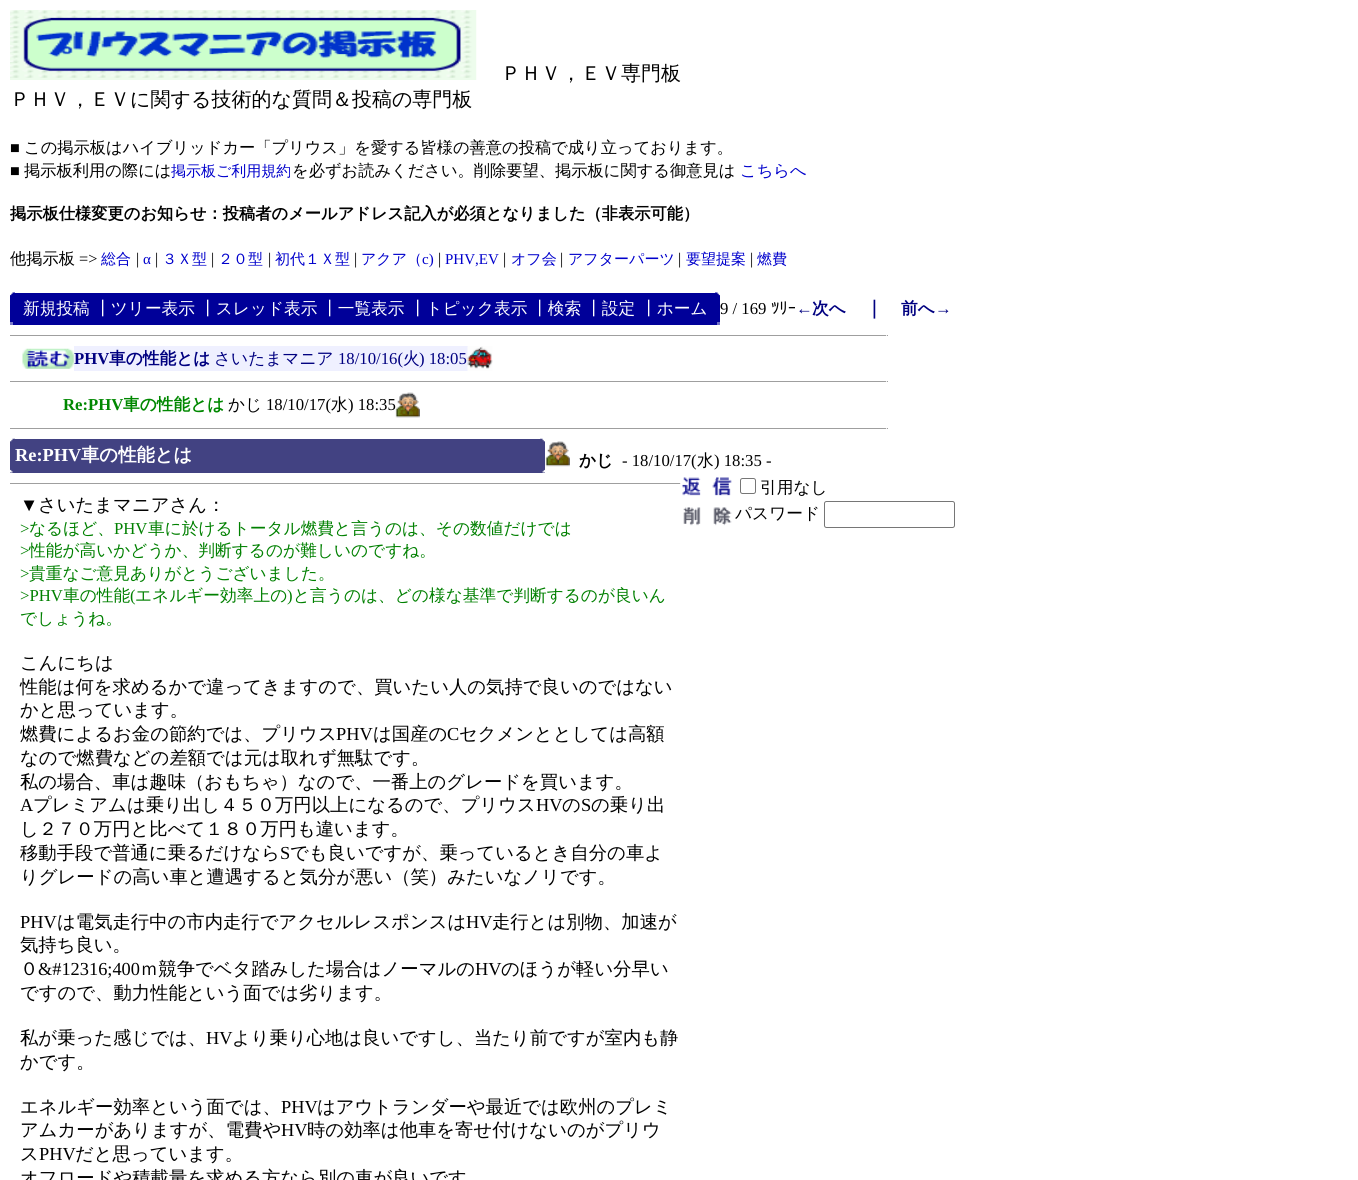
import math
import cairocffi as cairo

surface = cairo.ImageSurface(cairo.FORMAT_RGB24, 1358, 1180)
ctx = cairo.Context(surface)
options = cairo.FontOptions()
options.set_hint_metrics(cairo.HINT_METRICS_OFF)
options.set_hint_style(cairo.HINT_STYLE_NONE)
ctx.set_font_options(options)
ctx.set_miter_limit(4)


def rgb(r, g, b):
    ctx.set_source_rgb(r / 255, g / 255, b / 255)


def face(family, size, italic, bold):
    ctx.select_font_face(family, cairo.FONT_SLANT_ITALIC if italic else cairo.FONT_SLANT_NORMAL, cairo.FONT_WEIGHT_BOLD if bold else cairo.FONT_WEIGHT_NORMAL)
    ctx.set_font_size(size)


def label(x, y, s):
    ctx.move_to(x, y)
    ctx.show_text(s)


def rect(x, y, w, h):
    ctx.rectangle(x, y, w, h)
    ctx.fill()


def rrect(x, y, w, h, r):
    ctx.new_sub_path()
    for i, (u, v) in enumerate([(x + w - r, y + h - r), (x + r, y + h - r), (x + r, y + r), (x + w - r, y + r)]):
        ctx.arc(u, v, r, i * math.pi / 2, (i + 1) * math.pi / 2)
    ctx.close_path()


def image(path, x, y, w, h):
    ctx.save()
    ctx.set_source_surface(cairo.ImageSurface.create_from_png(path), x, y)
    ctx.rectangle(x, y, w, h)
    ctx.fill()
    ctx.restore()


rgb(255, 255, 255)
ctx.paint()
image('image0.png', 10, 10, 467, 70)
face('WenQuanYi Zen Hei Medium', 20, 0, 0)
rgb(0, 0, 0)
label(501, 80, 'ＰＨＶ，ＥＶ専門板')
label(10, 106, 'ＰＨＶ，ＥＶに関する技術的な質問＆投稿の専門板')
face('Liberation Serif', 16.25, 0, 0)
label(10, 153, '■')
face('WenQuanYi Zen Hei Medium', 16.25, 0, 0)
label(24, 153, 'この掲示板はハイブリッドカー「プリウス」を愛する皆様の善意の投稿で成り立っております。')
face('Liberation Serif', 16.25, 0, 0)
label(10, 176, '■')
face('WenQuanYi Zen Hei Medium', 16.25, 0, 0)
label(24, 176, '掲示板利用の際には')
face('WenQuanYi Zen Hei Medium', 15, 0, 0)
rgb(0, 0, 204)
label(171, 176, '掲示板ご利用規約')
face('WenQuanYi Zen Hei Medium', 16.25, 0, 0)
rgb(0, 0, 0)
label(292, 176, 'を必ずお読みください。削除要望、掲示板に関する御意見は')
rgb(0, 0, 204)
label(740, 176, 'こちらへ')
face('WenQuanYi Zen Hei', 16.25, 0, 1)
rgb(0, 0, 0)
label(10, 219, '掲示板仕様変更のお知らせ：投稿者のメールアドレス記入が必須となりました（非表示可能）')
face('WenQuanYi Zen Hei Medium', 16.25, 0, 0)
label(10, 264, '他掲示板')
face('Liberation Serif', 16.25, 0, 0)
label(79, 264, '=>')
face('WenQuanYi Zen Hei Medium', 15, 0, 0)
rgb(0, 0, 204)
label(101, 264, '総合')
face('Liberation Serif', 16.25, 0, 0)
rgb(0, 0, 0)
label(136, 264, '|')
face('Liberation Serif', 15, 0, 0)
rgb(0, 0, 204)
label(143, 264, 'α')
face('Liberation Serif', 16.25, 0, 0)
rgb(0, 0, 0)
label(155, 264, '|')
face('WenQuanYi Zen Hei Medium', 15, 0, 0)
rgb(0, 0, 204)
label(162, 264, '３Ｘ型')
face('Liberation Serif', 16.25, 0, 0)
rgb(0, 0, 0)
label(211, 264, '|')
face('WenQuanYi Zen Hei Medium', 15, 0, 0)
rgb(0, 0, 204)
label(218, 264, '２０型')
face('Liberation Serif', 16.25, 0, 0)
rgb(0, 0, 0)
label(268, 264, '|')
face('WenQuanYi Zen Hei Medium', 15, 0, 0)
rgb(0, 0, 204)
label(275, 264, '初代１Ｘ型')
face('Liberation Serif', 16.25, 0, 0)
rgb(0, 0, 0)
label(354, 264, '|')
face('WenQuanYi Zen Hei Medium', 15, 0, 0)
rgb(0, 0, 204)
label(361, 264, 'アクア（')
face('Liberation Serif', 15, 0, 0)
label(422, 264, 'c)')
face('Liberation Serif', 16.25, 0, 0)
rgb(0, 0, 0)
label(438, 264, '|')
face('Liberation Serif', 15, 0, 0)
rgb(0, 0, 204)
label(445, 264, 'PHV,EV')
face('Liberation Serif', 16.25, 0, 0)
rgb(0, 0, 0)
label(503, 264, '|')
face('WenQuanYi Zen Hei Medium', 15, 0, 0)
rgb(0, 0, 204)
label(511, 264, 'オフ会')
face('Liberation Serif', 16.25, 0, 0)
rgb(0, 0, 0)
label(560, 264, '|')
face('WenQuanYi Zen Hei Medium', 15, 0, 0)
rgb(0, 0, 204)
label(568, 264, 'アフターパーツ')
face('Liberation Serif', 16.25, 0, 0)
rgb(0, 0, 0)
label(678, 264, '|')
face('WenQuanYi Zen Hei Medium', 15, 0, 0)
rgb(0, 0, 204)
label(686, 264, '要望提案')
face('Liberation Serif', 16.25, 0, 0)
rgb(0, 0, 0)
label(750, 264, '|')
face('WenQuanYi Zen Hei Medium', 15, 0, 0)
rgb(0, 0, 204)
label(757, 264, '燃費')
rgb(0, 0, 153)
rect(10, 293, 710, 32)
image('image1.png', 10, 292, 5, 4)
image('image2.png', 715, 292, 5, 4)
face('WenQuanYi Zen Hei Medium', 16.7, 0, 0)
rgb(255, 255, 255)
label(23, 314, '新規投稿')
label(94, 314, '┃ツリー表示')
label(199, 314, '┃スレッド表示')
label(321, 314, '┃一覧表示')
label(409, 314, '┃トピック表示')
label(531, 314, '┃検索')
label(585, 314, '┃設定')
label(640, 314, '┃ホーム')
rgb(123, 123, 202)
rect(10, 322, 3, 3)
rgb(111, 111, 197)
rect(717, 322, 3, 3)
face('Liberation Serif', 16.7, 0, 0)
rgb(0, 0, 0)
label(720, 314, '9 / 169')
face('IPAPGothic', 16.7, 0, 0)
label(771, 314, 'ﾂﾘｰ')
face('Liberation Serif', 16.7, 0, 1)
rgb(0, 0, 128)
label(796, 314, '←')
face('WenQuanYi Zen Hei', 16.7, 0, 1)
label(812, 314, '次へ')
face('WenQuanYi Zen Hei', 18.35, 0, 1)
label(865, 314, '｜')
face('WenQuanYi Zen Hei', 16.7, 0, 1)
label(901, 314, '前へ')
face('Liberation Serif', 16.7, 0, 1)
label(935, 314, '→')
rgb(159, 159, 159)
rect(10, 335, 878, 1)
rgb(238, 238, 238)
rect(886, 335, 1, 1)
image('image3.png', 22, 348, 52, 21)
rgb(239, 240, 255)
rect(74, 346, 394, 25)
rgb(0, 0, 128)
label(74, 364, 'PHV')
face('WenQuanYi Zen Hei', 16.7, 0, 1)
label(109, 364, '車の性能とは')
face('WenQuanYi Zen Hei Medium', 16.7, 0, 0)
label(214, 364, 'さいたまマニア')
face('Liberation Serif', 16.7, 0, 0)
label(338, 364, '18/10/16(')
face('WenQuanYi Zen Hei Medium', 16.7, 0, 0)
label(403, 364, '火')
face('Liberation Serif', 16.7, 0, 0)
label(419, 364, ') 18:05')
image('image4.png', 467, 346, 26, 25)
rgb(159, 159, 159)
rect(10, 381, 878, 1)
rgb(238, 238, 238)
rect(886, 381, 1, 1)
face('Liberation Serif', 16.7, 0, 1)
rgb(0, 136, 0)
label(63, 410, 'Re:PHV')
face('WenQuanYi Zen Hei', 16.7, 0, 1)
label(123, 410, '車の性能とは')
face('WenQuanYi Zen Hei Medium', 16.7, 0, 0)
rgb(0, 0, 0)
label(228, 410, 'かじ')
face('Liberation Serif', 16.7, 0, 0)
label(266, 410, '18/10/17(')
face('WenQuanYi Zen Hei Medium', 16.7, 0, 0)
label(331, 410, '水')
face('Liberation Serif', 16.7, 0, 0)
label(348, 410, ') 18:35')
image('image5.png', 395, 392, 25, 26)
rgb(159, 159, 159)
rect(10, 428, 878, 1)
rgb(238, 238, 238)
rect(886, 428, 1, 1)
rgb(66, 66, 130)
rect(10, 439, 535, 34)
image('image6.png', 10, 438, 5, 4)
image('image7.png', 540, 438, 5, 4)
face('Liberation Serif', 18.35, 0, 1)
rgb(255, 255, 255)
label(15, 461, 'Re:PHV')
face('WenQuanYi Zen Hei', 18.35, 0, 1)
label(81, 461, '車の性能とは')
image('image8.png', 10, 469, 3, 4)
image('image9.png', 542, 469, 3, 4)
image('image10.png', 545, 441, 25, 26)
face('WenQuanYi Zen Hei', 16.7, 0, 1)
rgb(0, 0, 0)
label(579, 466, 'かじ')
face('Liberation Serif', 16.7, 0, 0)
label(622, 466, '- 18/10/17(')
face('WenQuanYi Zen Hei Medium', 16.7, 0, 0)
label(697, 466, '水')
face('Liberation Serif', 16.7, 0, 0)
label(714, 466, ') 18:35 -')
face('Liberation Serif', 18.35, 0, 0)
label(20, 511, '▼')
face('WenQuanYi Zen Hei Medium', 18.35, 0, 0)
label(38, 511, 'さいたまマニアさん：')
face('Liberation Serif', 16.7, 0, 0)
rgb(0, 128, 0)
label(20, 534, '>')
face('WenQuanYi Zen Hei Medium', 16.7, 0, 0)
label(29, 534, 'なるほど、')
face('Liberation Serif', 16.7, 0, 0)
label(114, 534, 'PHV')
face('WenQuanYi Zen Hei Medium', 16.7, 0, 0)
label(148, 534, '車に於けるトータル燃費と言うのは、その数値だけでは')
face('Liberation Serif', 16.7, 0, 0)
label(20, 556, '>')
face('WenQuanYi Zen Hei Medium', 16.7, 0, 0)
label(29, 556, '性能が高いかどうか、判断するのが難しいのですね。')
face('Liberation Serif', 16.7, 0, 0)
label(20, 579, '>')
face('WenQuanYi Zen Hei Medium', 16.7, 0, 0)
label(29, 579, '貴重なご意見ありがとうございました。')
face('Liberation Serif', 16.7, 0, 0)
label(20, 601, '>PHV')
face('WenQuanYi Zen Hei Medium', 16.7, 0, 0)
label(63, 601, '車の性能')
face('Liberation Serif', 16.7, 0, 0)
label(130, 601, '(')
face('WenQuanYi Zen Hei Medium', 16.7, 0, 0)
label(135, 601, 'エネルギー効率上の')
face('Liberation Serif', 16.7, 0, 0)
label(287, 601, ')')
face('WenQuanYi Zen Hei Medium', 16.7, 0, 0)
label(293, 601, 'と言うのは、どの様な基準で判断するのが良いん')
label(20, 624, 'でしょうね。')
face('WenQuanYi Zen Hei Medium', 18.35, 0, 0)
rgb(0, 0, 0)
label(20, 669, 'こんにちは')
label(20, 693, '性能は何を求めるかで違ってきますので、買いたい人の気持で良いのではない')
label(20, 716, 'かと思っています。')
label(20, 740, '燃費によるお金の節約では、プリウス')
face('Liberation Serif', 18.35, 0, 0)
label(336, 740, 'PHV')
face('WenQuanYi Zen Hei Medium', 18.35, 0, 0)
label(373, 740, 'は国産の')
face('Liberation Serif', 18.35, 0, 0)
label(447, 740, 'C')
face('WenQuanYi Zen Hei Medium', 18.35, 0, 0)
label(459, 740, 'セクメンととしては高額')
label(20, 764, 'なので燃費などの差額では元は取れず無駄です。')
label(20, 788, '私の場合、車は趣味（おもちゃ）なので、一番上のグレードを買います。')
face('Liberation Serif', 18.35, 0, 0)
label(20, 811, 'A')
face('WenQuanYi Zen Hei Medium', 18.35, 0, 0)
label(33, 811, 'プレミアムは乗り出し４５０万円以上になるので、プリウス')
face('Liberation Serif', 18.35, 0, 0)
label(536, 811, 'HV')
face('WenQuanYi Zen Hei Medium', 18.35, 0, 0)
label(562, 811, 'の')
face('Liberation Serif', 18.35, 0, 0)
label(581, 811, 'S')
face('WenQuanYi Zen Hei Medium', 18.35, 0, 0)
label(591, 811, 'の乗り出')
label(20, 835, 'し２７０万円と比べて１８０万円も違います。')
label(20, 859, '移動手段で普通に乗るだけなら')
face('Liberation Serif', 18.35, 0, 0)
label(280, 859, 'S')
face('WenQuanYi Zen Hei Medium', 18.35, 0, 0)
label(290, 859, 'でも良いですが、乗っているとき自分の車よ')
label(20, 883, 'りグレードの高い車と遭遇すると気分が悪い（笑）みたいなノリです。')
face('Liberation Serif', 18.35, 0, 0)
label(20, 928, 'PHV')
face('WenQuanYi Zen Hei Medium', 18.35, 0, 0)
label(57, 928, 'は電気走行中の市内走行でアクセルレスポンスは')
face('Liberation Serif', 18.35, 0, 0)
label(466, 928, 'HV')
face('WenQuanYi Zen Hei Medium', 18.35, 0, 0)
label(492, 928, '走行とは別物、加速が')
label(20, 951, '気持ち良い。')
label(20, 975, '０')
face('Liberation Serif', 18.35, 0, 0)
label(38, 975, '&#12316;400')
face('WenQuanYi Zen Hei Medium', 18.35, 0, 0)
label(140, 975, 'ｍ競争でベタ踏みした場合はノーマルの')
face('Liberation Serif', 18.35, 0, 0)
label(475, 975, 'HV')
face('WenQuanYi Zen Hei Medium', 18.35, 0, 0)
label(501, 975, 'のほうが軽い分早い')
label(20, 999, 'ですので、動力性能という面では劣ります。')
label(20, 1044, '私が乗った感じでは、')
face('Liberation Serif', 18.35, 0, 0)
label(206, 1044, 'HV')
face('WenQuanYi Zen Hei Medium', 18.35, 0, 0)
label(232, 1044, 'より乗り心地は良いですし、当たり前ですが室内も静')
label(20, 1068, 'かです。')
label(20, 1113, 'エネルギー効率という面では、')
face('Liberation Serif', 18.35, 0, 0)
label(281, 1113, 'PHV')
face('WenQuanYi Zen Hei Medium', 18.35, 0, 0)
label(317, 1113, 'はアウトランダーや最近では欧州のプレミ')
label(20, 1136, 'アムカーがありますが、電費や')
face('Liberation Serif', 18.35, 0, 0)
label(281, 1136, 'HV')
face('WenQuanYi Zen Hei Medium', 18.35, 0, 0)
label(307, 1136, '時の効率は他車を寄せ付けないのがプリウ')
label(20, 1160, 'ス')
face('Liberation Serif', 18.35, 0, 0)
label(39, 1160, 'PHV')
face('WenQuanYi Zen Hei Medium', 18.35, 0, 0)
label(75, 1160, 'だと思っています。')
label(20, 1184, 'オフロードや積載量を求める方なら別の車が良いです')
rgb(159, 159, 159)
rect(10, 483, 671, 1)
rgb(238, 238, 238)
rect(680, 483, 1, 1)
image('image11.png', 682, 477, 50, 19)
rrect(740.5, 478.5, 15, 15, 2)
rgb(118, 118, 118)
ctx.set_line_width(1)
ctx.stroke()
face('WenQuanYi Zen Hei Medium', 16.7, 0, 0)
rgb(0, 0, 0)
label(760, 493, '引用なし')
image('image12.png', 683, 507, 49, 19)
label(735, 519, 'パスワード')
rrect(824.5, 501.5, 130, 26, 2)
rgb(118, 118, 118)
ctx.stroke()
surface.write_to_png('render.png')
